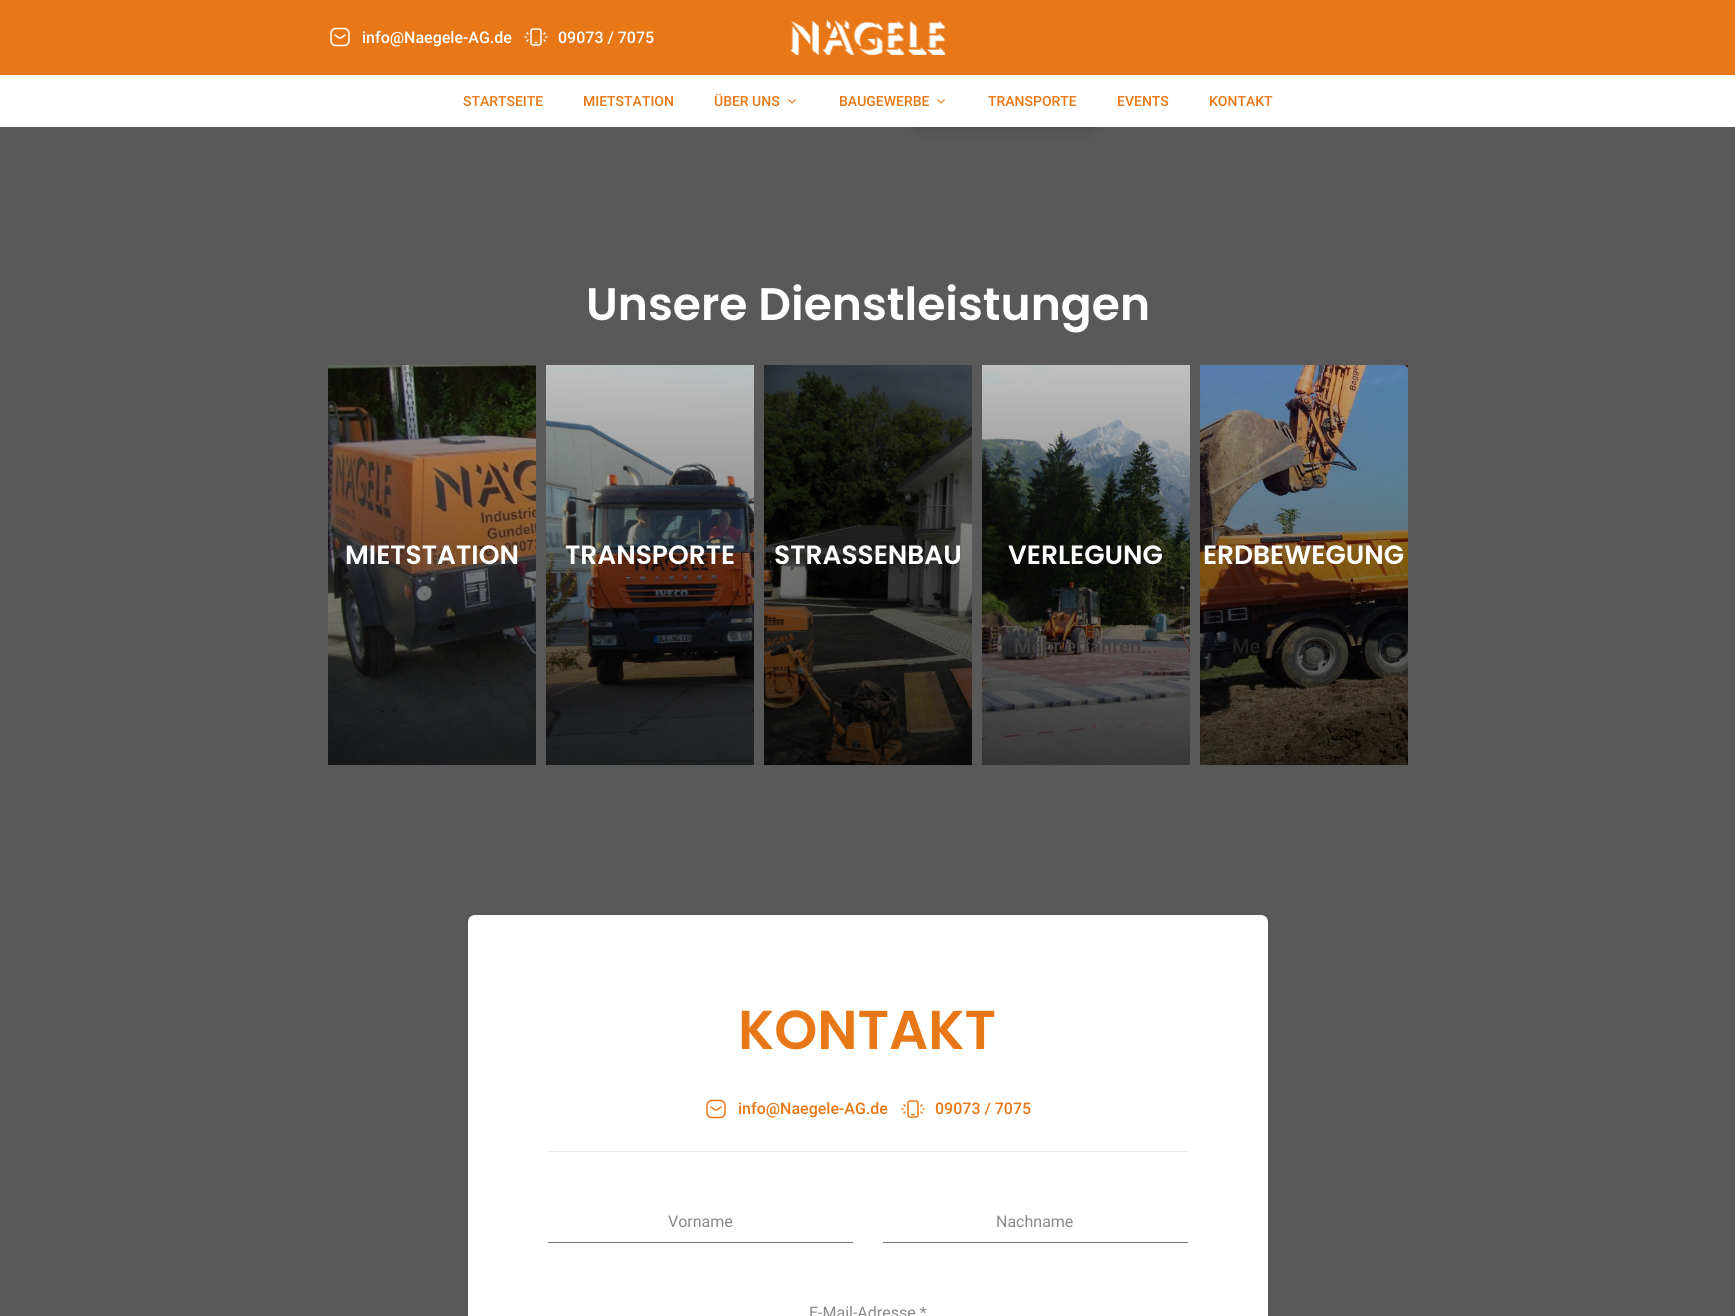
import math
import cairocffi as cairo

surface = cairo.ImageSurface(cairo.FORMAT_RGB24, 1735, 1316)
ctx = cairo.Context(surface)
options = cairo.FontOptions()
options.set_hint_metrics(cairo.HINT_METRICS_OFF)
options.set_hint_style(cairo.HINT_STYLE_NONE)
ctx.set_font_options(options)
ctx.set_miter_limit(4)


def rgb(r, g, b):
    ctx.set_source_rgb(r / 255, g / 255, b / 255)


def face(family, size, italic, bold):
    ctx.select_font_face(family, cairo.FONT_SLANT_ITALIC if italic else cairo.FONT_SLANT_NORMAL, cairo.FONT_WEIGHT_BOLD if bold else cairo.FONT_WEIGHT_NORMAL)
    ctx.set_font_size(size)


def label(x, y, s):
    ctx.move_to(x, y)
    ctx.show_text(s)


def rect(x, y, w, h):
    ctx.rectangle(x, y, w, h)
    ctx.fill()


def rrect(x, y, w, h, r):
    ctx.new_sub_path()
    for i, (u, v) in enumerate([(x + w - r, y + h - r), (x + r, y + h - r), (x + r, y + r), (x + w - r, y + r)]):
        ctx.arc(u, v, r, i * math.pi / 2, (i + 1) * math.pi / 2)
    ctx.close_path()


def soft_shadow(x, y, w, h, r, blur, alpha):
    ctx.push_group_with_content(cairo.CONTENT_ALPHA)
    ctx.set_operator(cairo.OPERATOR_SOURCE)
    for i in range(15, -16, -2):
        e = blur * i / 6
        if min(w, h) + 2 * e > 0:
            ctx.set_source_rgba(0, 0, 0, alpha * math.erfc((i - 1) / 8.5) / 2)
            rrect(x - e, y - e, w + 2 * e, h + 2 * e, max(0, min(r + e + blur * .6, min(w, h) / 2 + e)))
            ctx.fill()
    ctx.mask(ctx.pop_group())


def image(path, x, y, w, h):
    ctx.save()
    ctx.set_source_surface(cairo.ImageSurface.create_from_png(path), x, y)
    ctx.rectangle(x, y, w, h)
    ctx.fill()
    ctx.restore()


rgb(89, 89, 89)
ctx.paint()
rgb(232, 120, 23)
rect(0, 0, 1735, 75)
image('image0.png', 330, 27, 20, 20)
face('Roboto Medium', 16, 0, 0)
rgb(255, 255, 255)
label(362, 43, 'info@Naegele-AG.de')
image('image1.png', 524, 28, 24, 18)
label(558, 43, '09073 / 7075')
image('image2.png', 790, 20, 156, 35)
rgb(0, 0, 0)
soft_shadow(923, 106, 168, 14, 0, 10, 0.5)
rgb(255, 255, 255)
rect(0, 75, 1735, 52)
face('Roboto Medium', 14, 0, 0)
rgb(232, 120, 23)
label(463, 106, 'STARTSEITE')
label(583, 106, 'MIETSTATION')
label(714, 106, 'ÜBER UNS')
image('image3.png', 788, 99, 8, 5)
label(839, 106, 'BAUGEWERBE')
image('image3.png', 937, 99, 8, 5)
label(988, 106, 'TRANSPORTE')
label(1117, 106, 'EVENTS')
label(1209, 106, 'KONTAKT')
face('Poppins SemiBold', 45.6, 0, 0)
rgb(255, 255, 255)
label(586, 320, 'Unsere Dienstleistungen')
image('image4.png', 328, 365, 208, 400)
face('Poppins SemiBold', 26.5, 0, 0)
label(345, 564, 'MIETSTATION')
image('image5.png', 546, 365, 208, 400)
label(565, 564, 'TRANSPORTE')
image('image6.png', 764, 365, 208, 400)
label(774, 564, 'STRASSENBAU')
image('image7.png', 982, 365, 208, 400)
label(1008, 564, 'VERLEGUNG')
face('Roboto Medium', 20, 0, 0)
rgb(65, 61, 61)
label(1014, 653, 'Mehr erfahren...')
image('image8.png', 1200, 365, 208, 400)
face('Poppins SemiBold', 26.5, 0, 0)
rgb(255, 255, 255)
label(1203, 564, 'ERDBEWEGUNG')
face('Roboto Medium', 20, 0, 0)
rgb(33, 32, 30)
label(1232, 653, 'Me')
label(1359, 653, '.')
rgb(255, 255, 255)
rrect(468, 915, 800, 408, 7)
ctx.fill()
face('Poppins SemiBold', 54.75, 0, 0)
rgb(232, 120, 23)
label(738, 1049, 'KONTAKT')
image('image9.png', 706, 1099, 20, 20)
face('Roboto Medium', 16, 0, 0)
label(738, 1114, 'info@Naegele-AG.de')
image('image10.png', 901, 1100, 24, 18)
label(935, 1114, '09073 / 7075')
rgb(232, 232, 232)
rect(548, 1151, 640, 1)
face('Roboto', 16, 0, 0)
rgb(136, 136, 136)
label(668, 1227, 'Vorname')
rgb(119, 119, 113)
rect(548, 1242, 305, 1)
rgb(136, 136, 136)
label(996, 1227, 'Nachname')
rgb(119, 119, 113)
rect(883, 1242, 305, 1)
rgb(136, 136, 136)
label(809, 1318, 'E-Mail-Adresse *')
surface.write_to_png('render.png')
